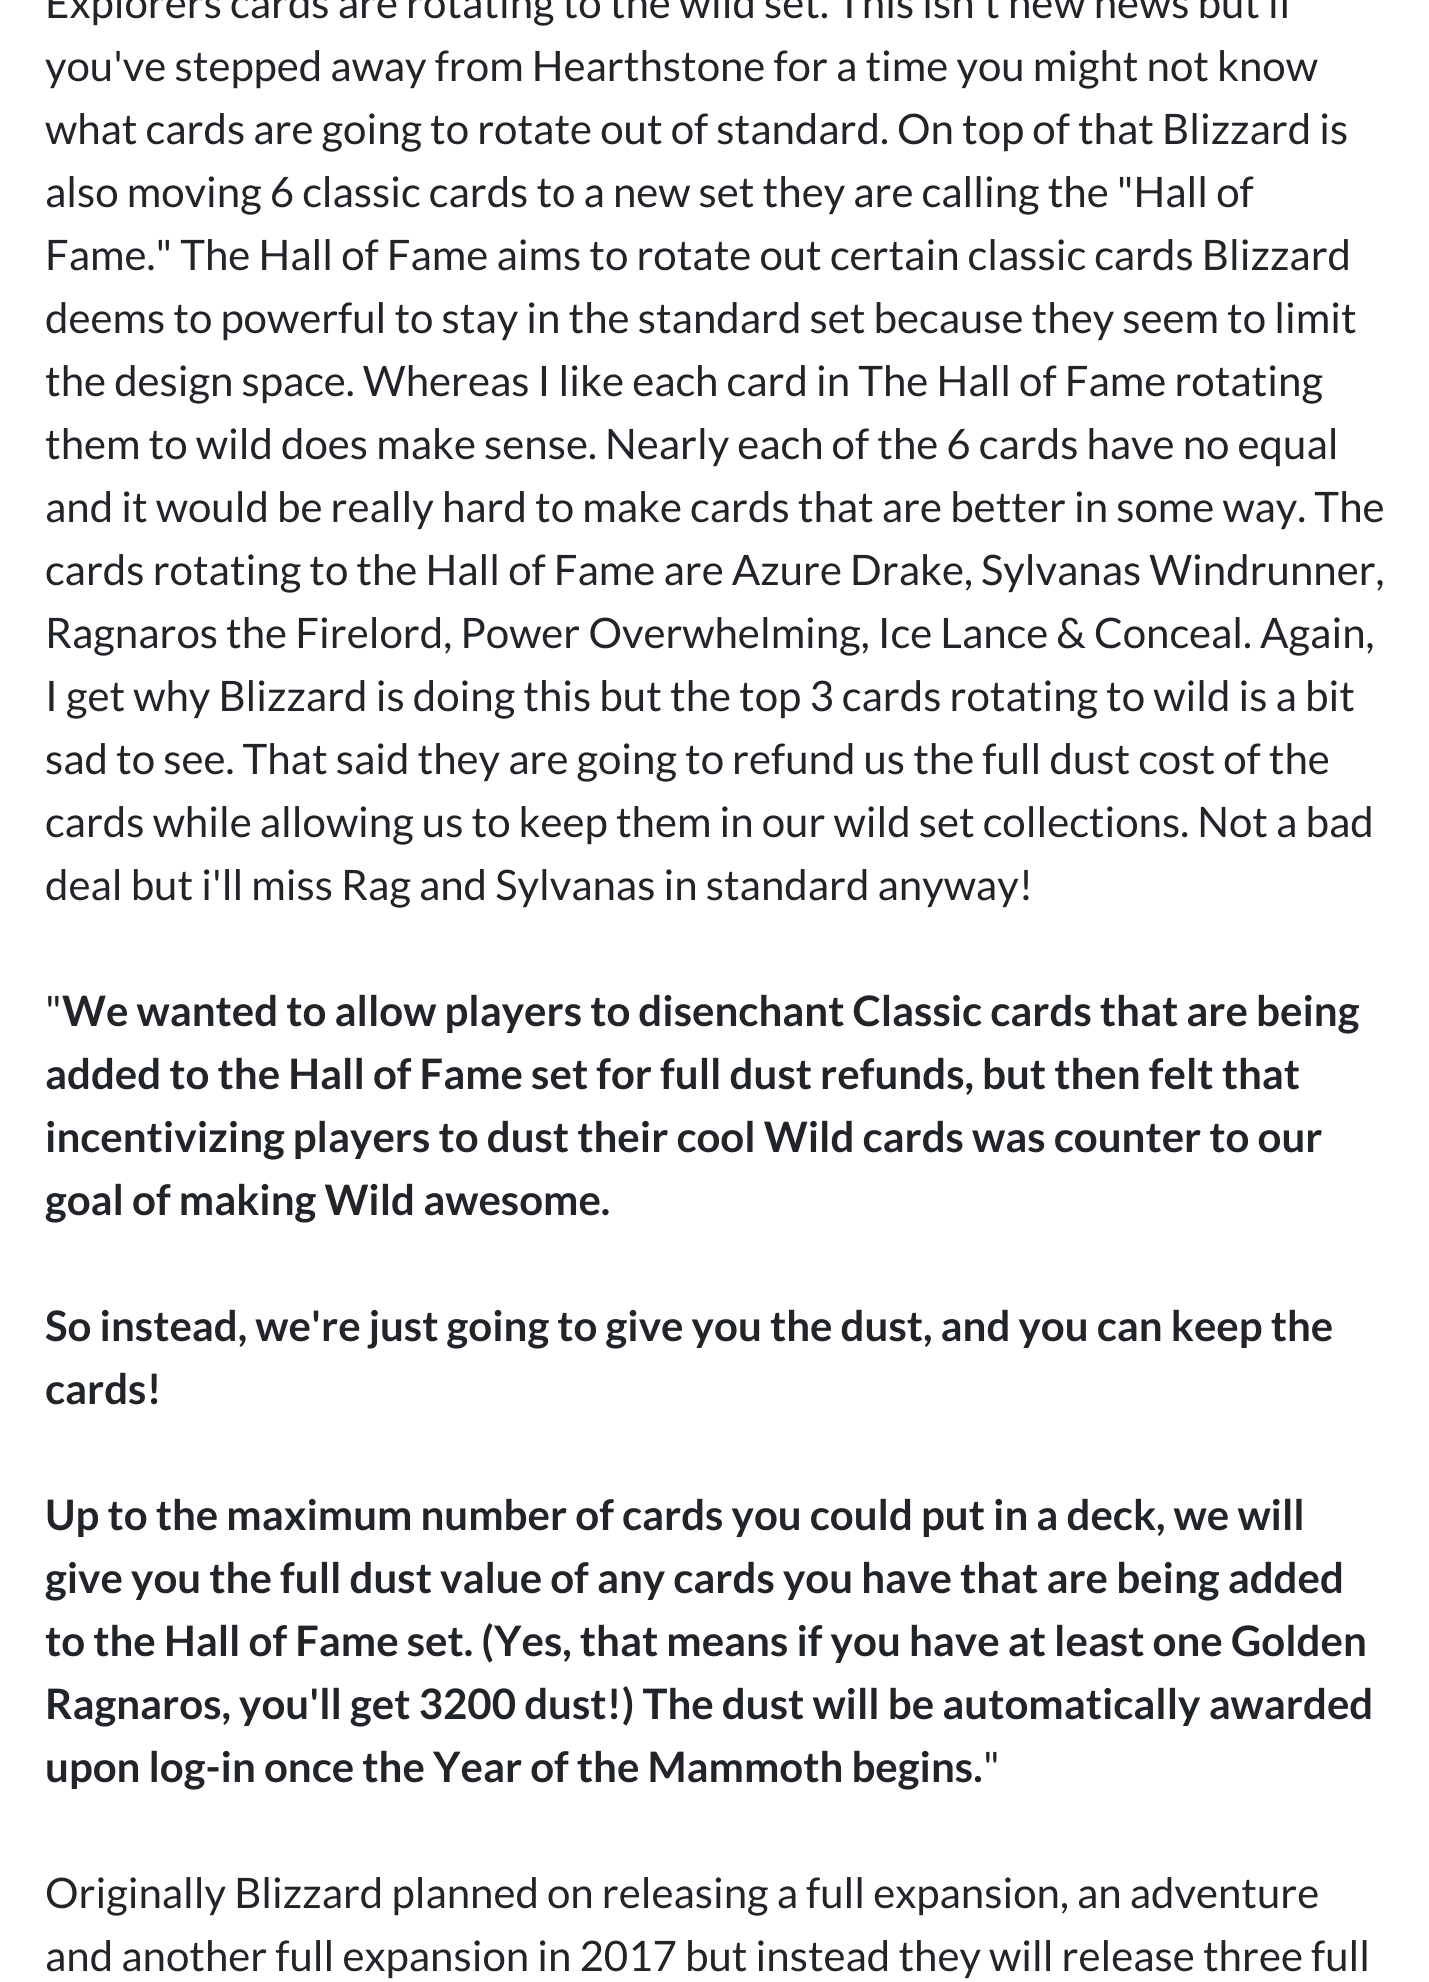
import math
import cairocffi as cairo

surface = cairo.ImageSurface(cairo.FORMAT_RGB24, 1429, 1982)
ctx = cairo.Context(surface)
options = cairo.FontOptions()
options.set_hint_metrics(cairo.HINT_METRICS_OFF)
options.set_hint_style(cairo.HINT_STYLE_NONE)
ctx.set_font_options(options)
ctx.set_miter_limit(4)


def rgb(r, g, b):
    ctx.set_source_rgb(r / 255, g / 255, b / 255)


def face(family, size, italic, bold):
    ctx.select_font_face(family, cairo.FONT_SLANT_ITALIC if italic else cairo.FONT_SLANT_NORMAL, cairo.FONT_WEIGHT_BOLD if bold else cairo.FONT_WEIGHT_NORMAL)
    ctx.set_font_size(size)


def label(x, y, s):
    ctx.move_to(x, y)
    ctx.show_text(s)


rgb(255, 255, 255)
ctx.paint()
face('Lato', 42, 0, 0)
rgb(33, 37, 41)
label(45, 18, 'Explorers cards are rotating to the wild set. This isn\'t new news but if')
label(45, 81, 'you\'ve stepped away from Hearthstone for a time you might not know')
label(45, 144, 'what cards are going to rotate out of standard. On top of that Blizzard is')
label(45, 207, 'also moving 6 classic cards to a new set they are calling the "Hall of')
label(45, 270, 'Fame." The Hall of Fame aims to rotate out certain classic cards Blizzard')
label(45, 333, 'deems to powerful to stay in the standard set because they seem to limit')
label(45, 396, 'the design space. Whereas I like each card in The Hall of Fame rotating')
label(45, 459, 'them to wild does make sense. Nearly each of the 6 cards have no equal')
label(45, 522, 'and it would be really hard to make cards that are better in some way. The')
label(45, 585, 'cards rotating to the Hall of Fame are Azure Drake, Sylvanas Windrunner,')
label(45, 648, 'Ragnaros the Firelord, Power Overwhelming, Ice Lance & Conceal. Again,')
label(45, 711, 'I get why Blizzard is doing this but the top 3 cards rotating to wild is a bit')
label(45, 774, 'sad to see. That said they are going to refund us the full dust cost of the')
label(45, 837, 'cards while allowing us to keep them in our wild set collections. Not a bad')
label(45, 900, 'deal but i\'ll miss Rag and Sylvanas in standard anyway!')
label(45, 1026, '"')
face('Lato', 42, 0, 1)
label(62, 1026, 'We wanted to allow players to disenchant Classic cards that are being')
label(45, 1089, 'added to the Hall of Fame set for full dust refunds, but then felt that')
label(45, 1152, 'incentivizing players to dust their cool Wild cards was counter to our')
label(45, 1215, 'goal of making Wild awesome.')
label(45, 1341, 'So instead, we\'re just going to give you the dust, and you can keep the')
label(45, 1404, 'cards!')
label(45, 1530, 'Up to the maximum number of cards you could put in a deck, we will')
label(45, 1593, 'give you the full dust value of any cards you have that are being added')
label(45, 1656, 'to the Hall of Fame set. (Yes, that means if you have at least one Golden')
label(45, 1719, 'Ragnaros, you\'ll get 3200 dust!) The dust will be automatically awarded')
label(45, 1782, 'upon log-in once the Year of the Mammoth begins.')
face('Lato', 42, 0, 0)
label(983, 1782, '"')
label(45, 1908, 'Originally Blizzard planned on releasing a full expansion, an adventure')
label(45, 1971, 'and another full expansion in 2017 but instead they will release three full')
surface.write_to_png('render.png')
